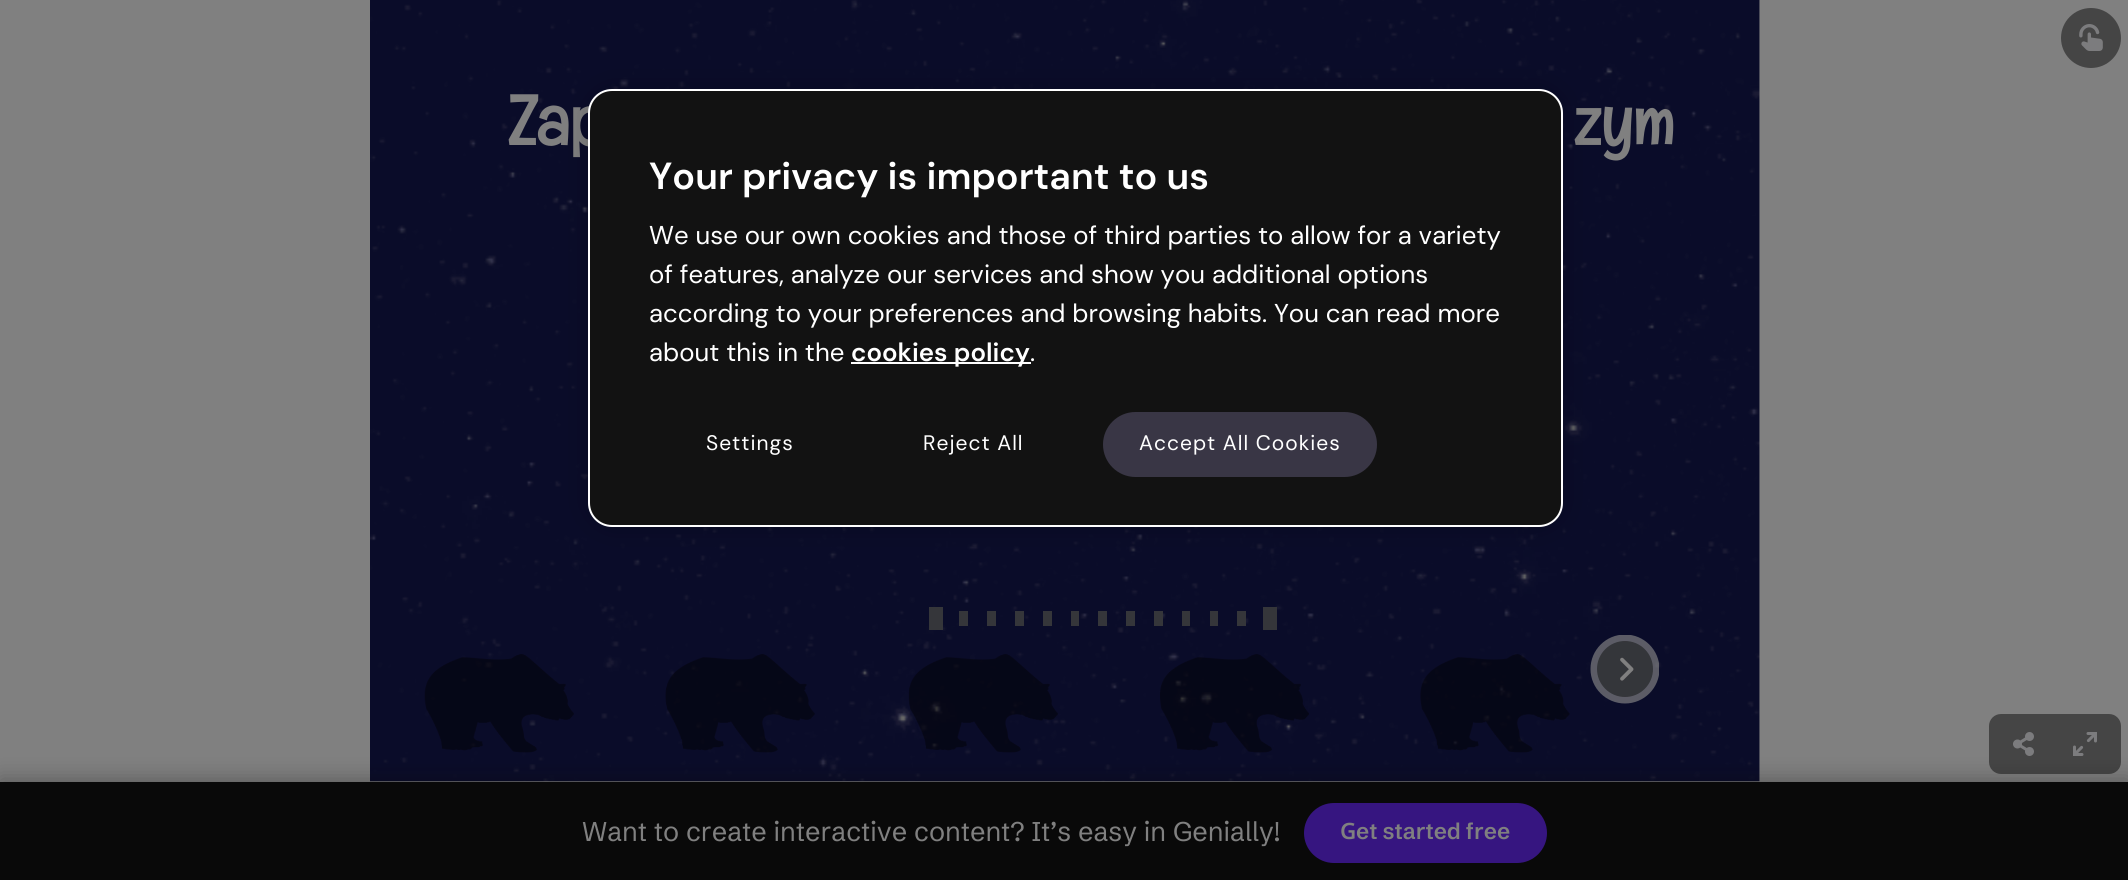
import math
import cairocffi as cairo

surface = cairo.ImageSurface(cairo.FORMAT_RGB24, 2128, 880)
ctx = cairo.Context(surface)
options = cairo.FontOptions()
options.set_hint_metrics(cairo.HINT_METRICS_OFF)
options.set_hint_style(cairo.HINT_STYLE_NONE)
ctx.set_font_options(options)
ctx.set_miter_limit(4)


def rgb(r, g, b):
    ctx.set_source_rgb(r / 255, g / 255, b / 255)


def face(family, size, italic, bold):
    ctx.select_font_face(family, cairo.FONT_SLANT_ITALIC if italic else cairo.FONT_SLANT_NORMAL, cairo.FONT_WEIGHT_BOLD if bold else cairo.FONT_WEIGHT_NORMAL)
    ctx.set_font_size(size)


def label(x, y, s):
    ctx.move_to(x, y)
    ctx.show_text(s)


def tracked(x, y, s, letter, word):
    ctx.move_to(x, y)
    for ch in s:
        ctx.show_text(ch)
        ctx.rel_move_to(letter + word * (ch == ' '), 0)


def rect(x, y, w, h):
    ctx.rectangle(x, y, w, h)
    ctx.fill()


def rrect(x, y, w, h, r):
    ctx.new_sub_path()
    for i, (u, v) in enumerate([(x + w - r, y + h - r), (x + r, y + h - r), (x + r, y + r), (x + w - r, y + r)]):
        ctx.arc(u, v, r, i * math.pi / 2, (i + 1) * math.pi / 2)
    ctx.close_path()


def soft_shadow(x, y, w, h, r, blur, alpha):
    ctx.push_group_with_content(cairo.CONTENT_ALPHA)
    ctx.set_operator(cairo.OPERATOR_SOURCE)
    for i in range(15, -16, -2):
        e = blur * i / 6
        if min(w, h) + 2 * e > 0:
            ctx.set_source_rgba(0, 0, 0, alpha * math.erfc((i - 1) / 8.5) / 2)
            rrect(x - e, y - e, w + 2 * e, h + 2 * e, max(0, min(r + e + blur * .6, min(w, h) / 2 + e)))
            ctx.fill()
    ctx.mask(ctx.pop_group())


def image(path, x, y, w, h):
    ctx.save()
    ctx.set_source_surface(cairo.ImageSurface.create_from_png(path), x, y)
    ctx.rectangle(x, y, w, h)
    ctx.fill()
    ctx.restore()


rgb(128, 128, 128)
ctx.paint()
image('image0.png', 370, 0, 1390, 782)
face('Englebert', 69, 0, 1)
rgb(128, 128, 128)
label(508, 145, 'Zap')
label(1574, 145, 'zym')
rgb(53, 54, 58)
rect(929, 607, 14, 23)
rect(959, 611, 9, 15)
rect(987, 611, 9, 15)
rect(1015, 611, 9, 15)
rect(1043, 611, 9, 15)
rect(1071, 611, 8, 15)
rect(1098, 611, 9, 15)
rect(1126, 611, 9, 15)
rect(1154, 611, 9, 15)
rect(1182, 611, 8, 15)
rect(1210, 611, 8, 15)
rect(1237, 611, 9, 15)
rect(1263, 607, 14, 23)
image('image1.png', 424, 654, 150, 99)
image('image2.png', 665, 654, 150, 99)
image('image3.png', 908, 654, 150, 99)
image('image4.png', 1160, 654, 149, 99)
image('image5.png', 1420, 654, 150, 99)
image('image6.png', 1590, 635, 69, 69)
rgb(69, 69, 69)
ctx.arc(2091, 38, 30, 0, 2 * math.pi)
ctx.fill()
image('image7.png', 2079, 24, 24, 27)
rrect(1989, 714, 132, 60, 12)
ctx.fill()
image('image8.png', 2013, 732, 21, 24)
image('image9.png', 2073, 732, 24, 24)
rgb(9, 9, 9)
soft_shadow(0, 779, 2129, 100, 0, 10, 0.3)
rgb(9, 9, 9)
rect(0, 782, 2128, 98)
face('Schibsted Grotesk', 27, 0, 0)
rgb(128, 128, 128)
label(582, 841, 'Want to create interactive content? It’s easy in Genially!')
rgb(54, 21, 128)
rrect(1304, 803, 243, 60, 30)
ctx.fill()
face('Noto Sans SemiBold', 22.5, 0, 0)
rgb(128, 128, 128)
label(1340, 839, 'G')
face('Schibsted Grotesk SemiBold', 22.5, 0, 0)
label(1356, 839, 'et started free')
rgb(0, 0, 0)
soft_shadow(588, 89, 975, 438, 24, 13.5, 0.2)
rgb(18, 18, 18)
rrect(589, 90, 973, 436, 23)
ctx.fill_preserve()
rgb(255, 255, 255)
ctx.stroke()
face('DM Sans SemiBold', 37.75, 0, 0)
label(649, 189, 'Your privacy is important to us')
face('DM Sans', 25.8, 0, 0)
label(649, 244, 'We use our own cookies and those of third parties to allow for a variety')
label(649, 283, 'of features, analyze our services and show you additional options')
label(649, 322, 'according to your preferences and browsing habits. You can read more')
label(649, 361, 'about this in the')
rect(851, 362, 180, 2)
face('DM Sans SemiBold', 25.8, 0, 0)
label(851, 361, 'cookies policy')
face('DM Sans', 25.8, 0, 0)
label(1030, 361, '.')
face('DM Sans', 21, 0, 0)
tracked(706, 450, 'Settings', 1, 0)
tracked(923, 450, 'Reject All', 1, 0)
rgb(57, 54, 69)
rrect(1102, 411, 276, 67, 33.5)
ctx.fill_preserve()
rgb(18, 18, 18)
ctx.stroke()
rgb(255, 255, 255)
tracked(1139, 450, 'Accept All Cookies', 1, 0)
surface.write_to_png('render.png')
